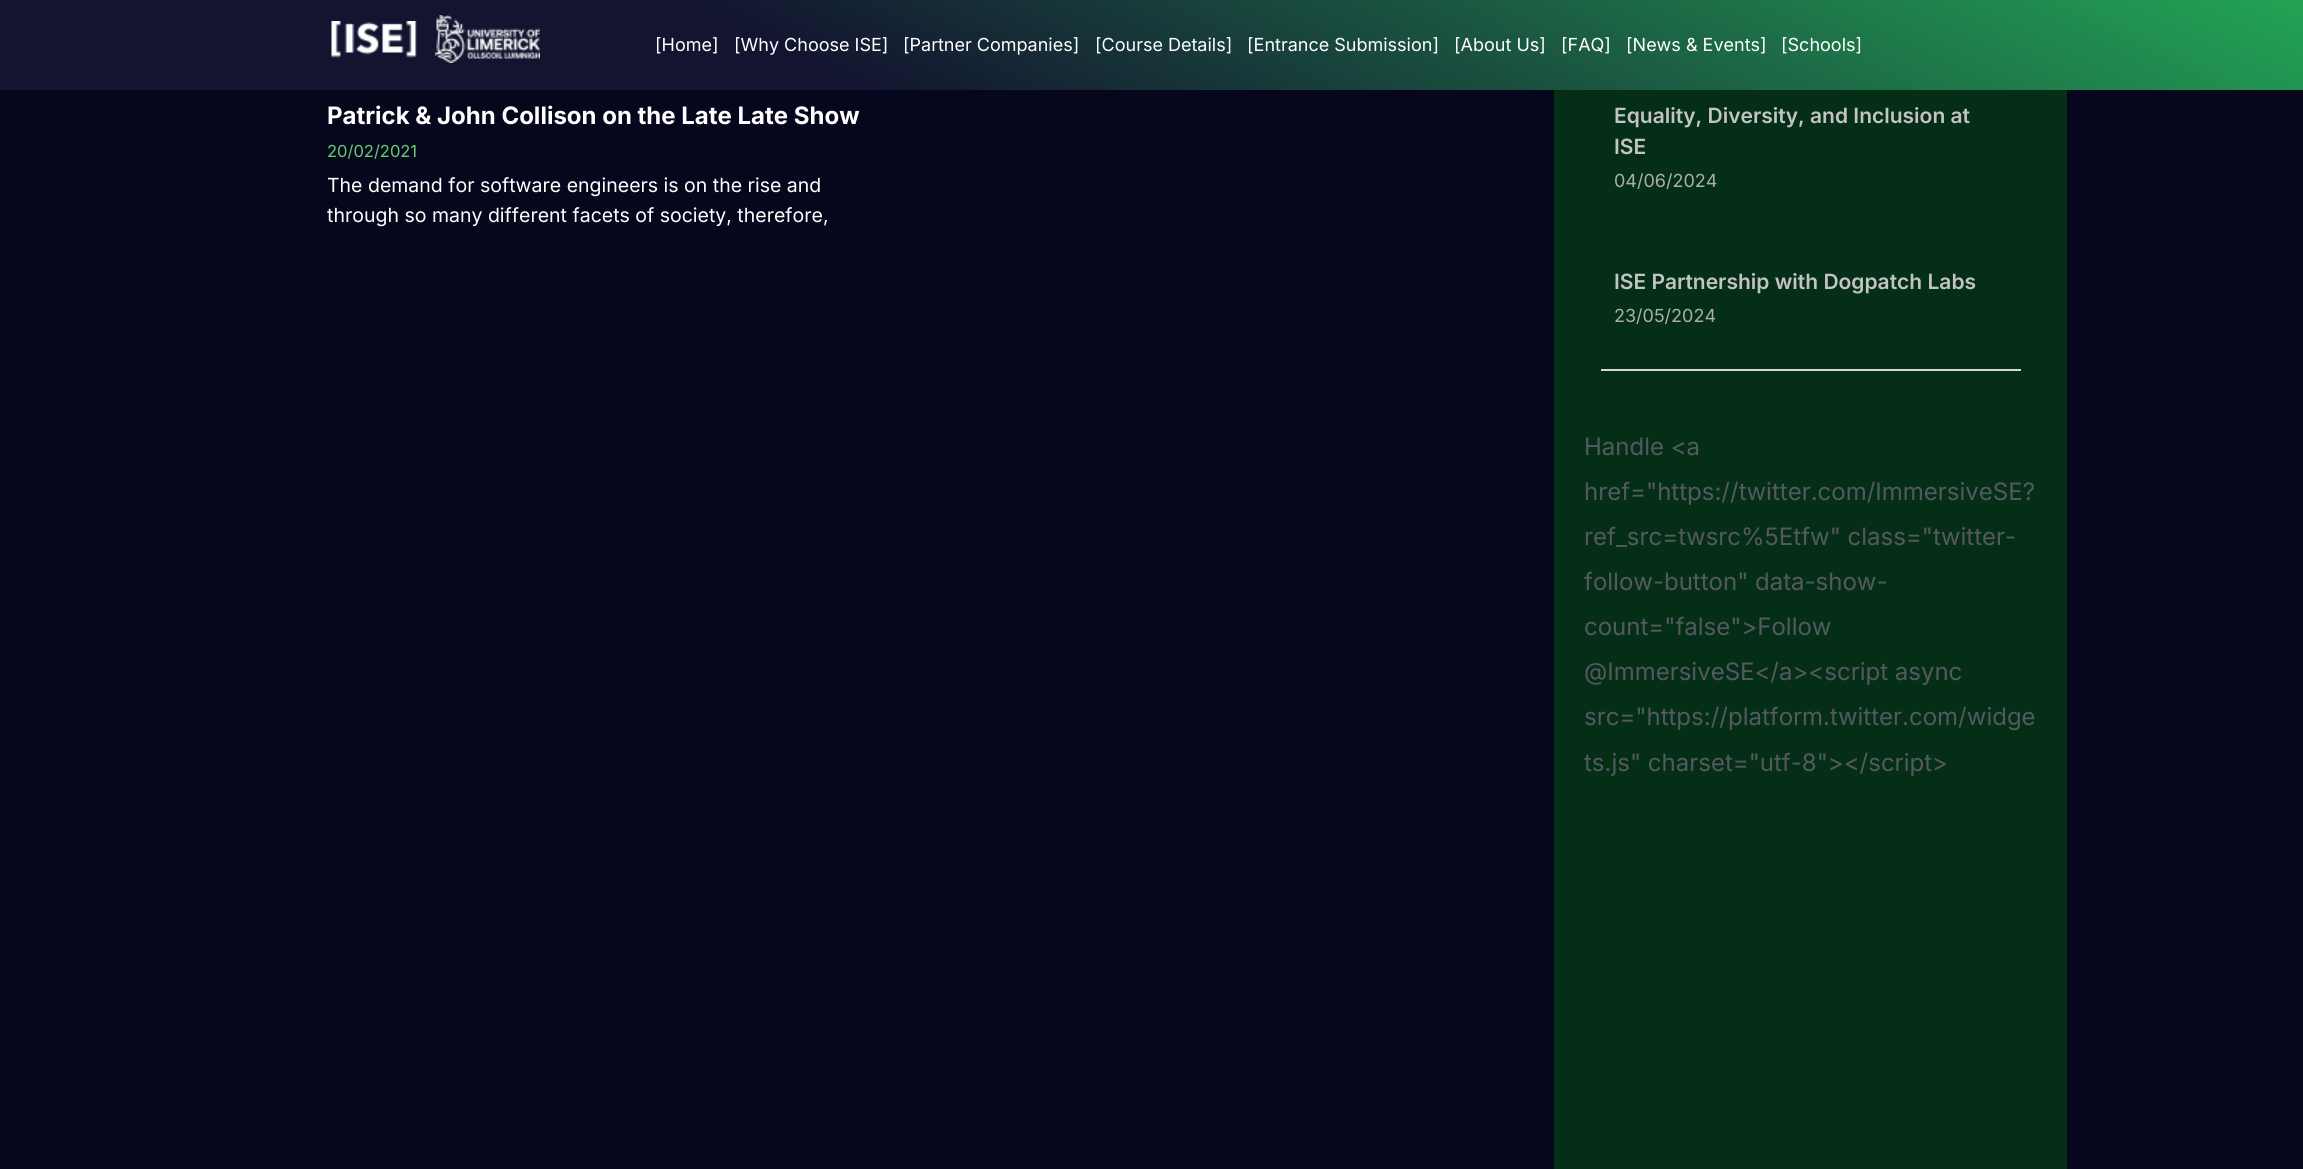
import math
import cairocffi as cairo

surface = cairo.ImageSurface(cairo.FORMAT_RGB24, 2303, 1169)
ctx = cairo.Context(surface)
options = cairo.FontOptions()
options.set_hint_metrics(cairo.HINT_METRICS_OFF)
options.set_hint_style(cairo.HINT_STYLE_NONE)
ctx.set_font_options(options)
ctx.set_miter_limit(4)


def rgb(r, g, b):
    ctx.set_source_rgb(r / 255, g / 255, b / 255)


def face(family, size, italic, bold):
    ctx.select_font_face(family, cairo.FONT_SLANT_ITALIC if italic else cairo.FONT_SLANT_NORMAL, cairo.FONT_WEIGHT_BOLD if bold else cairo.FONT_WEIGHT_NORMAL)
    ctx.set_font_size(size)


def label(x, y, s):
    ctx.move_to(x, y)
    ctx.show_text(s)


def rect(x, y, w, h):
    ctx.rectangle(x, y, w, h)
    ctx.fill()


def image(path, x, y, w, h):
    ctx.save()
    ctx.set_source_surface(cairo.ImageSurface.create_from_png(path), x, y)
    ctx.rectangle(x, y, w, h)
    ctx.fill()
    ctx.restore()


rgb(6, 6, 29)
ctx.paint()
gradient = cairo.LinearGradient(1408, -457, 896, 547)
gradient.add_color_stop_rgba(0, 0.137, 0.643, 0.333, 1)
gradient.add_color_stop_rgba(0.65, 0.075, 0.082, 0.188, 1)
ctx.set_source(gradient)
rect(0, 0, 2303, 90)
image('image0.png', 331, 21, 86, 37)
image('image1.png', 435, 15, 105, 48)
face('Inter', 18, 0, 0)
rgb(255, 255, 255)
label(655, 51, '[Home]')
label(734, 51, '[Why Choose ISE]')
label(903, 51, '[Partner Companies]')
label(1095, 51, '[Course Details]')
label(1247, 51, '[Entrance Submission]')
label(1454, 51, '[About Us]')
label(1561, 51, '[FAQ]')
label(1626, 51, '[News & Events]')
label(1781, 51, '[Schools]')
face('Inter', 24, 0, 1)
label(327, 124, 'Patrick & John Collison on the Late Late Show')
face('Inter', 16.5, 0, 0)
rgb(97, 206, 112)
label(327, 157, '20/02/2021')
face('Inter', 19.5, 0, 0)
rgb(255, 255, 255)
label(327, 192, 'The demand for software engineers is on the rise and')
label(327, 222, 'through so many different facets of society, therefore,')
rgb(4, 46, 21)
rect(1554, 90, 513, 1079)
face('Inter SemiBold', 21, 0, 0)
rgb(195, 195, 195)
label(1614, 123, 'Equality, Diversity, and Inclusion at')
label(1614, 154, 'ISE')
face('Inter', 18, 0, 0)
rgb(173, 173, 173)
label(1614, 187, '04/06/2024')
face('Inter SemiBold', 21, 0, 0)
rgb(195, 195, 195)
label(1614, 289, 'ISE Partnership with Dogpatch Labs')
face('Inter', 18, 0, 0)
rgb(173, 173, 173)
label(1614, 322, '23/05/2024')
rgb(215, 215, 215)
rect(1601, 369, 420, 2)
face('Inter', 24, 0, 0)
rgb(84, 89, 95)
label(1584, 455, 'Handle <a')
label(1584, 500, 'href="https://twitter.com/ImmersiveSE?')
label(1584, 545, 'ref_src=twsrc%5Etfw" class="twitter-')
label(1584, 590, 'follow-button" data-show-')
label(1584, 635, 'count="false">Follow')
label(1584, 680, '@ImmersiveSE</a><script async')
label(1584, 725, 'src="https://platform.twitter.com/widge')
label(1584, 771, 'ts.js" charset="utf-8"></script>')
surface.write_to_png('render.png')
